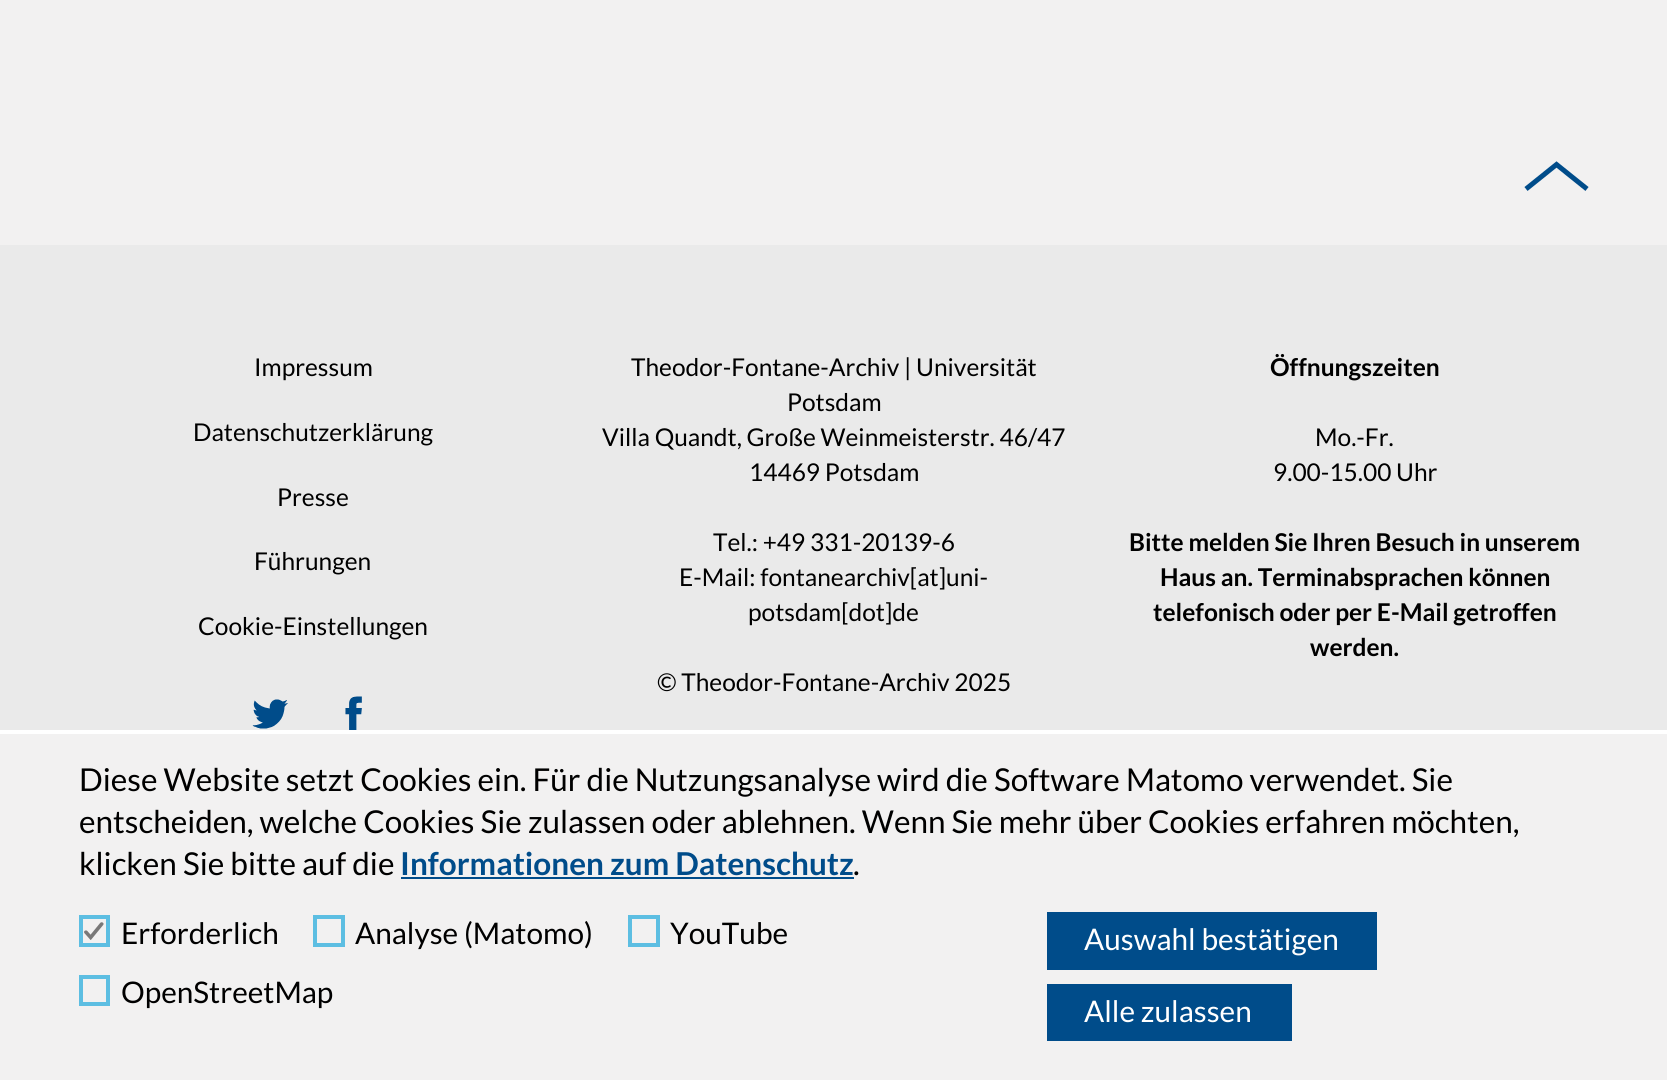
import math
import cairocffi as cairo

surface = cairo.ImageSurface(cairo.FORMAT_RGB24, 1667, 1080)
ctx = cairo.Context(surface)
options = cairo.FontOptions()
options.set_hint_metrics(cairo.HINT_METRICS_OFF)
options.set_hint_style(cairo.HINT_STYLE_NONE)
ctx.set_font_options(options)
ctx.set_miter_limit(4)


def rgb(r, g, b):
    ctx.set_source_rgb(r / 255, g / 255, b / 255)


def face(family, size, italic, bold):
    ctx.select_font_face(family, cairo.FONT_SLANT_ITALIC if italic else cairo.FONT_SLANT_NORMAL, cairo.FONT_WEIGHT_BOLD if bold else cairo.FONT_WEIGHT_NORMAL)
    ctx.set_font_size(size)


def label(x, y, s):
    ctx.move_to(x, y)
    ctx.show_text(s)


def rect(x, y, w, h):
    ctx.rectangle(x, y, w, h)
    ctx.fill()


def image(path, x, y, w, h):
    ctx.save()
    ctx.set_source_surface(cairo.ImageSurface.create_from_png(path), x, y)
    ctx.rectangle(x, y, w, h)
    ctx.fill()
    ctx.restore()


rgb(242, 241, 241)
ctx.paint()
ctx.new_path()
ctx.move_to(1587, 189)
ctx.line_to(1556.5, 164.5)
ctx.line_to(1526, 189)
rgb(0, 76, 138)
ctx.set_line_width(5)
ctx.stroke()
rgb(234, 234, 234)
rect(0, 245, 1667, 485)
face('Lato', 24.5, 0, 0)
rgb(0, 0, 0)
label(254, 376, 'Impressum')
label(193, 441, 'Datenschutzerklärung')
label(277, 506, 'Presse')
label(254, 570, 'Führungen')
label(198, 635, 'Cookie-Einstellungen')
image('image0.png', 252, 699, 36, 30)
image('image1.png', 345, 696, 17, 34)
label(631, 376, 'Theodor-Fontane-Archiv | Universität')
label(787, 411, 'Potsdam')
label(602, 446, 'Villa Quandt, Große Weinmeisterstr. 46/47')
label(749, 481, '14469 Potsdam')
label(713, 551, 'Tel.: +49 331-20139-6')
label(679, 586, 'E-Mail: fontanearchiv[at]uni-')
label(748, 621, 'potsdam[dot]de')
label(657, 691, '© Theodor-Fontane-Archiv 2025')
face('Lato', 24.5, 0, 1)
label(1270, 376, 'Öffnungszeiten')
face('Lato', 24.5, 0, 0)
label(1315, 446, 'Mo.-Fr.')
label(1273, 481, '9.00-15.00 Uhr')
face('Lato', 24.5, 0, 1)
label(1129, 551, 'Bitte melden Sie Ihren Besuch in unserem')
label(1160, 586, 'Haus an. Terminabsprachen können')
label(1153, 621, 'telefonisch oder per E-Mail getroffen')
label(1310, 656, 'werden.')
rgb(255, 255, 255)
rect(0, 730, 1667, 4)
face('Lato', 31.5, 0, 0)
rgb(0, 0, 0)
label(79, 791, 'Diese Website setzt Cookies ein. Für die Nutzungsanalyse wird die Software Matomo verwendet. Sie')
label(79, 833, 'entscheiden, welche Cookies Sie zulassen oder ablehnen. Wenn Sie mehr über Cookies erfahren möchten,')
label(79, 875, 'klicken Sie bitte auf die')
face('Lato', 31.5, 0, 1)
rgb(0, 76, 138)
label(400, 875, 'Informationen zum Datenschutz')
rect(401, 877, 453, 2)
face('Lato', 31.5, 0, 0)
rgb(0, 0, 0)
label(853, 875, '.')
ctx.rectangle(81, 917, 27, 28)
rgb(93, 190, 226)
ctx.set_line_width(4)
ctx.stroke()
image('image2.png', 84, 922, 20, 18)
face('Lato', 29.75, 0, 0)
rgb(0, 0, 0)
label(121, 944, 'Erforderlich')
ctx.rectangle(315, 917, 28, 28)
rgb(93, 190, 226)
ctx.stroke()
rgb(0, 0, 0)
label(355, 944, 'Analyse (Matomo)')
ctx.rectangle(630, 917, 28, 28)
rgb(93, 190, 226)
ctx.stroke()
rgb(0, 0, 0)
label(670, 944, 'YouTube')
ctx.rectangle(81, 977, 27, 27)
rgb(93, 190, 226)
ctx.stroke()
rgb(0, 0, 0)
label(121, 1003, 'OpenStreetMap')
rgb(0, 76, 138)
rect(1047, 912, 330, 58)
rgb(255, 255, 255)
label(1084, 950, 'Auswahl bestätigen')
rgb(0, 76, 138)
rect(1047, 984, 245, 57)
rgb(255, 255, 255)
label(1084, 1022, 'Alle zulassen')
surface.write_to_png('render.png')
